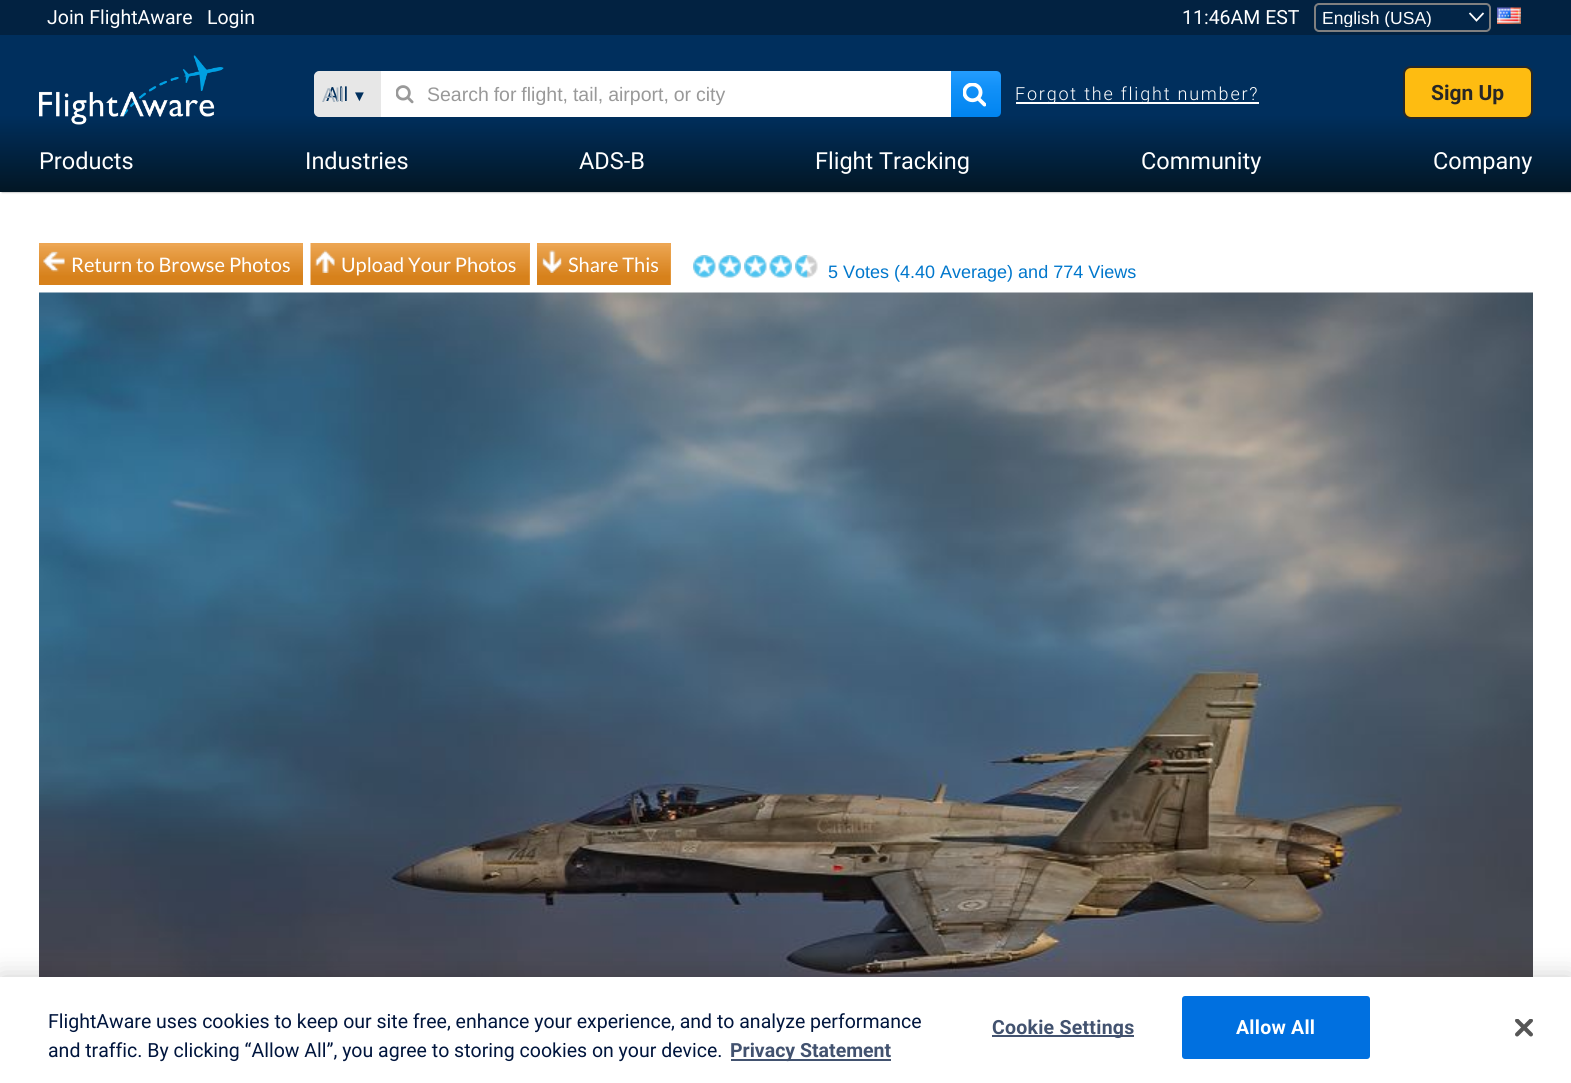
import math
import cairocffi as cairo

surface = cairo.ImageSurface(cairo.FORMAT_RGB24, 1571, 1083)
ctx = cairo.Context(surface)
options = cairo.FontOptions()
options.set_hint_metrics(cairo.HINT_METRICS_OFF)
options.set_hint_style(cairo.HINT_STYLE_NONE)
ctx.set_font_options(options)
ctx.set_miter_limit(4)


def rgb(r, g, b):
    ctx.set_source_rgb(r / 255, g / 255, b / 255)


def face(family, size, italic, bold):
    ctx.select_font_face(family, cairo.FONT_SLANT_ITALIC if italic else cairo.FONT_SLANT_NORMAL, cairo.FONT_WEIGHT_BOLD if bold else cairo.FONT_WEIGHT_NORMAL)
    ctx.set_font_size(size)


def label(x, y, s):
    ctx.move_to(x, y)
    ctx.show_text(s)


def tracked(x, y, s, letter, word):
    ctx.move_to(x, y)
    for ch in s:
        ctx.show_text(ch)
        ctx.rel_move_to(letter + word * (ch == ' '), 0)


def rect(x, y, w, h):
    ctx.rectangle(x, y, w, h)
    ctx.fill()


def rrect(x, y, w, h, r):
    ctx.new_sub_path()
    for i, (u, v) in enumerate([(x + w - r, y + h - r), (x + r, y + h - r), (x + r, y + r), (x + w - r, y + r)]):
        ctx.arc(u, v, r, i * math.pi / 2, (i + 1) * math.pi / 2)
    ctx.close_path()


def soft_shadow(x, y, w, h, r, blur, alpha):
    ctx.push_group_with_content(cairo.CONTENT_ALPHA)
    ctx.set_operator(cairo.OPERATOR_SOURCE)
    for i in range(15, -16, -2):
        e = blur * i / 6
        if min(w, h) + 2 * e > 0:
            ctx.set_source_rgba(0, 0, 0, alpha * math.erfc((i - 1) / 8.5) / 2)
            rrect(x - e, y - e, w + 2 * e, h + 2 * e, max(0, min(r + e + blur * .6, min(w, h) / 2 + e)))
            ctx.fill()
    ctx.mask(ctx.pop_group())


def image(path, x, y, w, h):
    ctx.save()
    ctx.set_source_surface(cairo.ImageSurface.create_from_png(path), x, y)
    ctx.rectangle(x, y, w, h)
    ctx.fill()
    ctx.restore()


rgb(255, 255, 255)
ctx.paint()
rgb(136, 136, 136)
soft_shadow(2, 3, 1569, 189, 0, 1, 1)
gradient = cairo.LinearGradient(786, 0, 786, 192)
gradient.add_color_stop_rgba(0, 0, 0.184, 0.365, 1)
gradient.add_color_stop_rgba(0.6, 0, 0.184, 0.365, 1)
gradient.add_color_stop_rgba(1, 0.008, 0.086, 0.141, 1)
ctx.set_source(gradient)
rect(0, 35, 1571, 157)
rgb(2, 34, 65)
rect(0, 0, 1571, 35)
face('Roboto', 19.5, 0, 0)
rgb(255, 255, 255)
label(47, 24, 'Join FlightAware')
label(207, 24, 'Login')
label(1182, 24, '11:46AM EST')
rgb(2, 37, 71)
rrect(1314, 3, 177, 29, 5)
ctx.fill()
ctx.new_path()
ctx.move_to(1469.5, 13)
ctx.line_to(1476.5, 20.5)
ctx.line_to(1483.5, 13)
rgb(255, 255, 255)
ctx.set_line_width(1.8)
ctx.stroke()
rrect(1315, 4, 175, 27, 4)
rgb(128, 128, 128)
ctx.set_line_width(2)
ctx.stroke()
ctx.save()
ctx.rectangle(1322, 8, 162, 19)
ctx.clip()
face('Liberation Sans', 17.5, 0, 0)
rgb(255, 255, 255)
label(1322, 24, 'English (USA)')
ctx.restore()
image('image0.png', 1497, 7, 24, 17)
image('image1.png', 39, 55, 185, 70)
rgb(231, 231, 231)
ctx.new_path()
ctx.move_to(319, 72)
ctx.line_to(380, 72)
ctx.line_to(380, 116)
ctx.line_to(319, 116)
ctx.curve_to(317, 116, 315, 114, 315, 112)
ctx.line_to(315, 76)
ctx.curve_to(315, 74, 317, 72, 319, 72)
ctx.close_path()
ctx.fill_preserve()
ctx.stroke()
rgb(0, 47, 93)
label(326, 101, 'All')
face('Liberation Sans', 15, 0, 0)
label(352, 101, '▼')
face('Liberation Sans', 20, 0, 0)
rgb(165, 179, 192)
label(322, 102, 'All')
rgb(255, 255, 255)
rect(381, 71, 570, 46)
image('image2.png', 396, 85, 18, 19)
face('Liberation Sans', 19.5, 0, 0)
rgb(153, 153, 153)
tracked(427, 101, 'Search for flight, tail, airport, or city', 0, -0.5)
gradient = cairo.LinearGradient(975, 117, 975, 71)
gradient.add_color_stop_rgba(0, 0, 0.518, 0.941, 1)
gradient.add_color_stop_rgba(0.66, 0.071, 0.569, 0.973, 1)
gradient.add_color_stop_rgba(1, 0.141, 0.616, 1, 1)
ctx.set_source(gradient)
ctx.new_path()
ctx.move_to(951, 71)
ctx.line_to(996, 71)
ctx.curve_to(999, 71, 1001, 73, 1001, 76)
ctx.line_to(1001, 112)
ctx.curve_to(1001, 115, 999, 117, 996, 117)
ctx.line_to(951, 117)
ctx.close_path()
ctx.fill()
image('image3.png', 963, 83, 23, 24)
rgb(255, 255, 255)
rect(1016, 102, 243, 2)
face('Roboto Light', 18, 0, 0)
tracked(1015, 100, 'Forgot the flight number?', 1.8, 0)
rgb(254, 188, 17)
rrect(1404, 67, 128, 51, 7)
ctx.fill_preserve()
rgb(39, 39, 39)
ctx.stroke()
face('Roboto', 21, 0, 1)
label(1431, 100, 'Sign Up')
face('Roboto', 23.5, 0, 0)
rgb(255, 255, 255)
label(39, 169, 'Products')
label(305, 169, 'Industries')
label(579, 169, 'ADS-B')
label(815, 169, 'Flight Tracking')
label(1141, 169, 'Community')
label(1433, 169, 'Company')
rgb(237, 166, 83)
rect(39, 243, 264, 3)
image('image4.png', 39, 246, 264, 39)
image('image5.png', 43, 251, 22, 21)
face('Lato', 20, 0, 0)
rgb(255, 255, 255)
label(71, 272, 'Return to Browse Photos')
rgb(237, 166, 83)
rect(529, 243, 1, 42)
image('image6.png', 310, 243, 220, 42)
image('image7.png', 314, 250, 21, 23)
rgb(255, 255, 255)
label(341, 272, 'Upload Your Photos')
rgb(237, 166, 83)
rect(537, 243, 134, 42)
image('image8.png', 537, 246, 134, 39)
image('image9.png', 541, 250, 21, 23)
rgb(255, 255, 255)
label(568, 272, 'Share This')
image('image10.png', 693, 255, 23, 23)
image('image11.png', 718, 255, 23, 23)
image('image12.png', 744, 255, 23, 23)
image('image13.png', 769, 255, 23, 23)
image('image14.png', 795, 255, 23, 23)
face('Liberation Sans', 18, 0, 0)
rgb(0, 119, 204)
label(828, 278, '5 Votes (4.40 Average) and 774 Views')
image('image15.png', 39, 292, 1494, 685)
rgb(0, 0, 0)
soft_shadow(0, 977, 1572, 106, 0, 13.5, 0.2)
rgb(255, 255, 255)
rect(0, 977, 1571, 106)
face('Roboto', 19.5, 0, 0)
rgb(0, 21, 61)
label(48, 1028, 'FlightAware uses cookies to keep our site free, enhance your experience, and to analyze performance')
label(48, 1057, 'and traffic. By clicking “Allow All”, you agree to storing cookies on your device.')
rgb(66, 82, 111)
rect(731, 1059, 160, 2)
face('Roboto', 19.5, 0, 1)
label(730, 1057, 'Privacy Statement')
rect(992, 1035, 142, 2)
tracked(992, 1034, 'Cookie Settings', 0.25, 0)
rgb(0, 112, 224)
rrect(1183, 997, 186, 61, 2)
ctx.fill_preserve()
ctx.stroke()
rgb(255, 255, 255)
tracked(1236, 1034, 'Allow All', 0.25, 0)
image('image16.png', 1515, 1019, 18, 18)
surface.write_to_png('render.png')
